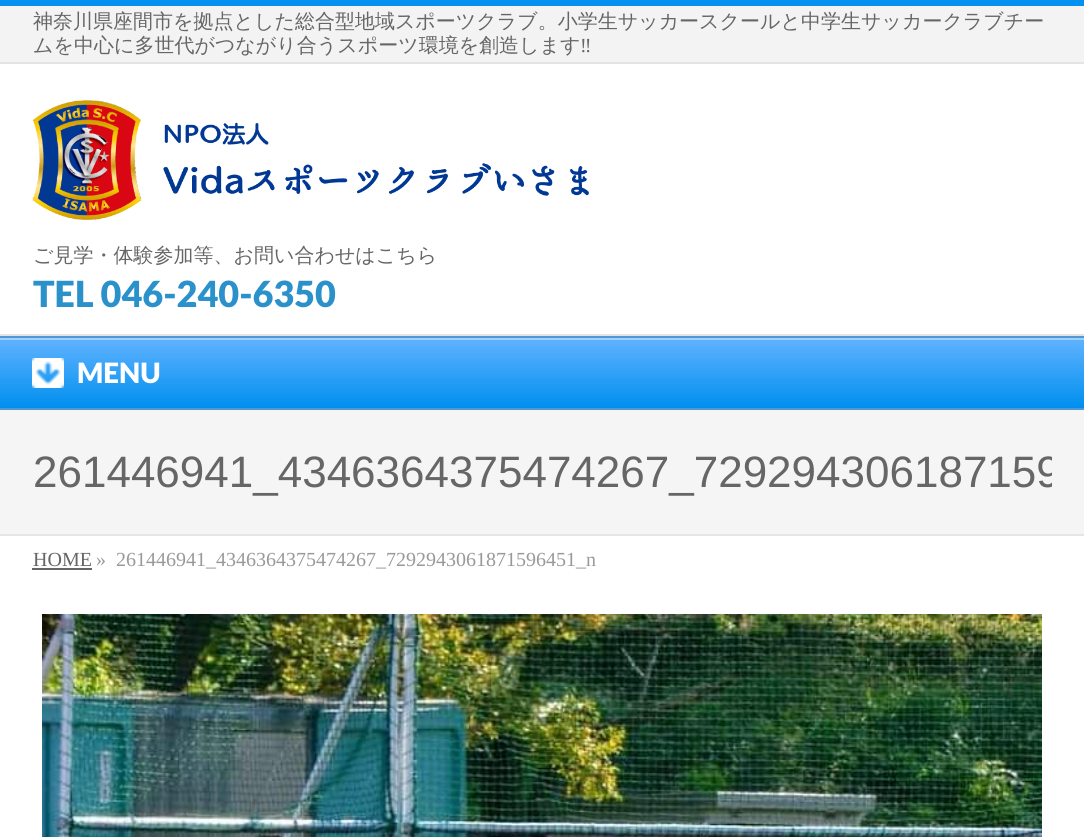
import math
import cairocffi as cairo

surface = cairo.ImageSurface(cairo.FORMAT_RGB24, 1084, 837)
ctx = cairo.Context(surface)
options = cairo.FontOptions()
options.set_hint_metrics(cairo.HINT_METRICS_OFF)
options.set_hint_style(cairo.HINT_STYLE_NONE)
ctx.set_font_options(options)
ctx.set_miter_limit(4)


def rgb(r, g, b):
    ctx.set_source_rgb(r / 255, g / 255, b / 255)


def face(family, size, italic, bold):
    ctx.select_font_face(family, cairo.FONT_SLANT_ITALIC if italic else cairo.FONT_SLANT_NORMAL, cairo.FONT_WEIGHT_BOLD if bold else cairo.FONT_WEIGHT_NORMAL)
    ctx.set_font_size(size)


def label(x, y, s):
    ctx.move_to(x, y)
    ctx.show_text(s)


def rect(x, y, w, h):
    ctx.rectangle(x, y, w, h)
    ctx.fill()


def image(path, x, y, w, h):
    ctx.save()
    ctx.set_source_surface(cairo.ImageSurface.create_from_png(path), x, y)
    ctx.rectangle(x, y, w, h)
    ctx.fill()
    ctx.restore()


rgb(255, 255, 255)
ctx.paint()
rgb(243, 243, 243)
rect(0, 6, 1084, 56)
rgb(4, 144, 240)
rect(0, 0, 1084, 6)
face('WenQuanYi Zen Hei Medium', 20, 0, 0)
rgb(102, 102, 102)
label(33, 28, '神奈川県座間市を拠点とした総合型地域スポーツクラブ。小学生サッカースクールと中学生サッカークラブチー')
label(33, 52, 'ムを中心に多世代がつながり合うスポーツ環境を創造します')
face('Liberation Serif', 20, 0, 0)
label(580, 52, '‼')
rgb(228, 228, 228)
rect(0, 62, 1084, 2)
rect(0, 334, 1084, 2)
image('image0.png', 32, 100, 557, 120)
face('WenQuanYi Zen Hei Medium', 20, 0, 0)
rgb(102, 102, 102)
label(33, 262, 'ご見学・体験参加等、お問い合わせはこちら')
face('Lato Black', 36, 0, 0)
rgb(43, 145, 203)
label(33, 307, 'TEL 046-240-6350')
gradient = cairo.LinearGradient(542, 338, 542, 408)
gradient.add_color_stop_rgba(0, 0.38, 0.702, 1, 1)
gradient.add_color_stop_rgba(1, 0, 0.561, 0.937, 1)
ctx.set_source(gradient)
rect(0, 340, 1084, 68)
rgb(159, 209, 255)
rect(0, 338, 1084, 2)
rgb(81, 151, 213)
rect(0, 336, 1084, 2)
rect(0, 408, 1084, 2)
image('image1.png', 32, 358, 32, 30)
face('Lato Black', 28, 0, 0)
rgb(255, 255, 255)
label(77, 383, 'MENU')
rgb(245, 245, 245)
rect(0, 410, 1084, 124)
rgb(229, 229, 229)
rect(0, 534, 1084, 2)
ctx.save()
ctx.rectangle(32, 410, 1020, 124)
ctx.clip()
face('Liberation Sans', 44, 0, 0)
rgb(102, 102, 102)
label(33, 487, '261446941_4346364375474267_729294306187159')
ctx.restore()
face('Liberation Serif', 20, 0, 0)
rgb(102, 102, 102)
label(33, 566, 'HOME')
rect(32, 568, 60, 2)
rgb(153, 153, 153)
label(96, 566, '»')
label(116, 566, '261446941_4346364375474267_7292943061871596451_n')
image('image2.png', 42, 614, 1000, 223)
surface.write_to_png('render.png')
